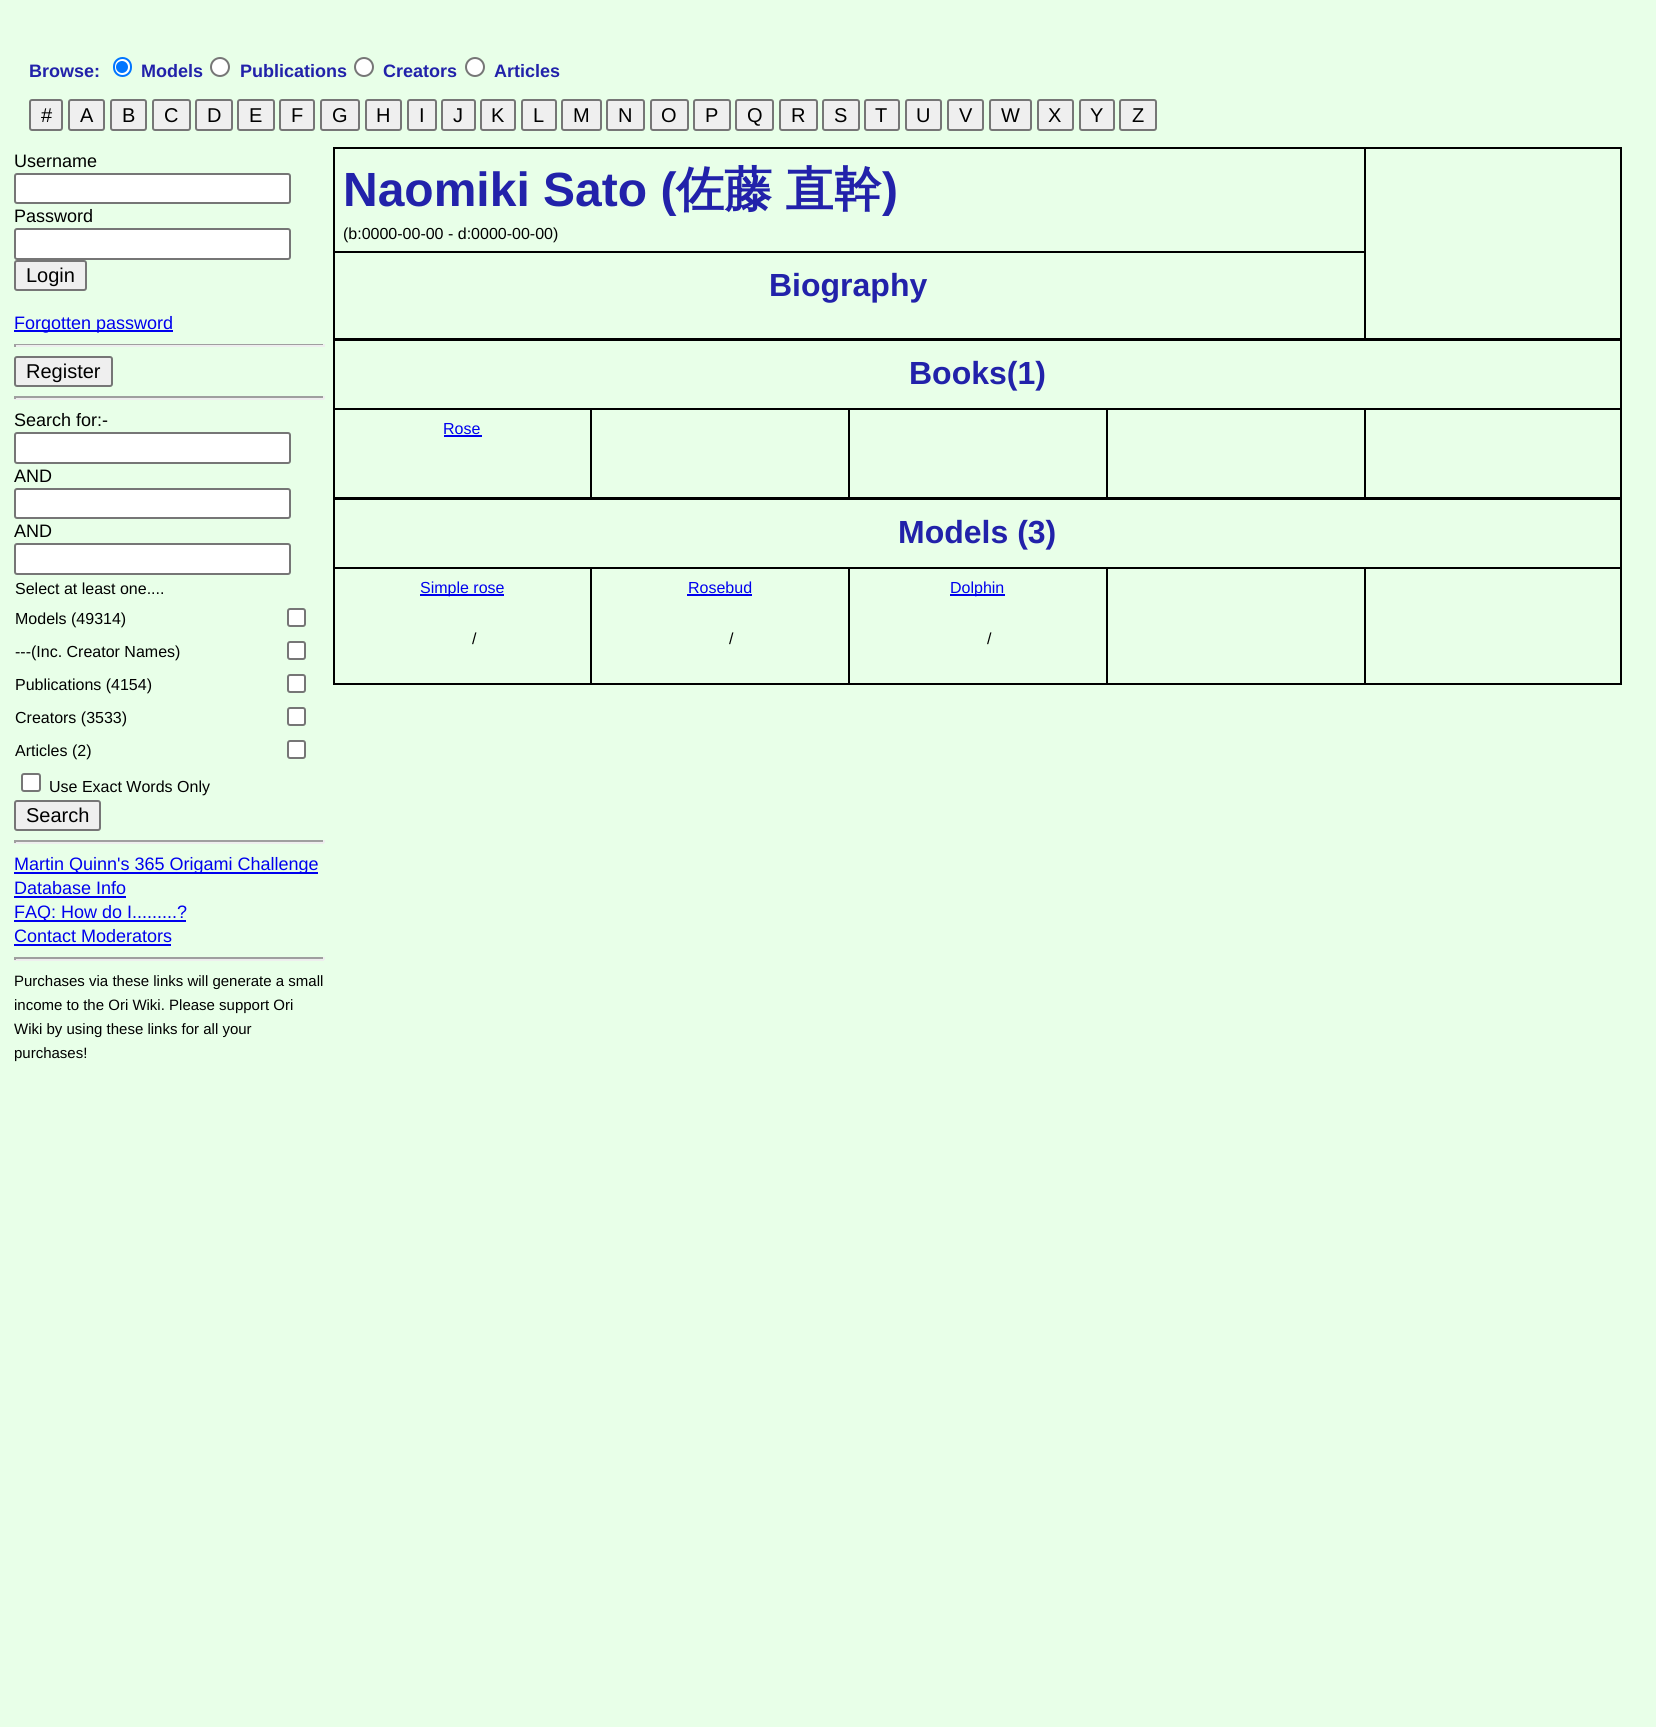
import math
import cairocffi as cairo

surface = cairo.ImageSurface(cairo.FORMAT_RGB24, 1656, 1727)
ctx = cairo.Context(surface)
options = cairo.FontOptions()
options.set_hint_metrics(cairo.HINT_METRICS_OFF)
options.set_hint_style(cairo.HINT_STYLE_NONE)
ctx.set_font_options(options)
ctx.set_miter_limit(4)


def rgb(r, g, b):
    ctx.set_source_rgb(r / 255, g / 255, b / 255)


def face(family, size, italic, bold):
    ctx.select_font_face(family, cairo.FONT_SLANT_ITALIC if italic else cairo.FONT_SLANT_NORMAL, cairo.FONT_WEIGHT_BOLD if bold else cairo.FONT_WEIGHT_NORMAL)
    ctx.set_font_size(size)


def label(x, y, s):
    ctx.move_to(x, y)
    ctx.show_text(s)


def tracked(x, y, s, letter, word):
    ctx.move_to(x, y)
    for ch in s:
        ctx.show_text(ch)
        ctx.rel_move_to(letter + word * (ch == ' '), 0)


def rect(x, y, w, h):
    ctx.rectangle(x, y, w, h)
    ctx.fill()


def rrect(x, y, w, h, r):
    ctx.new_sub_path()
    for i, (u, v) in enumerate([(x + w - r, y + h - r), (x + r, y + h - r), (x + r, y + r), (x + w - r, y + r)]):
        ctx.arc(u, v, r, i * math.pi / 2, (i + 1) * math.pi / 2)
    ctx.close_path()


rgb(232, 255, 232)
ctx.paint()
face('Liberation Sans', 18, 0, 1)
rgb(34, 34, 170)
label(29, 77, 'Browse:')
rgb(255, 255, 255)
rrect(114, 58, 17, 18, 8.5)
ctx.fill_preserve()
rgb(0, 117, 255)
ctx.stroke()
ctx.arc(122, 67, 6, 0, 2 * math.pi)
ctx.fill()
rgb(34, 34, 170)
label(141, 77, 'Models')
rgb(255, 255, 255)
ctx.new_path()
ctx.arc(220, 67, 9, 0, 2 * math.pi)
ctx.fill_preserve()
rgb(118, 118, 118)
ctx.stroke()
rgb(34, 34, 170)
label(240, 77, 'Publications')
rgb(255, 255, 255)
ctx.new_path()
ctx.arc(364, 67, 9, 0, 2 * math.pi)
ctx.fill_preserve()
rgb(118, 118, 118)
ctx.stroke()
rgb(34, 34, 170)
label(383, 77, 'Creators')
rgb(255, 255, 255)
ctx.new_path()
ctx.arc(475, 67, 9, 0, 2 * math.pi)
ctx.fill_preserve()
rgb(118, 118, 118)
ctx.stroke()
rgb(34, 34, 170)
label(494, 77, 'Articles')
rgb(239, 239, 239)
rrect(30, 100, 32, 30, 2)
ctx.fill_preserve()
rgb(118, 118, 118)
ctx.stroke()
face('Liberation Sans', 20, 0, 0)
rgb(0, 0, 0)
label(41, 122, '#')
rgb(239, 239, 239)
rrect(69, 100, 35, 30, 2)
ctx.fill_preserve()
rgb(118, 118, 118)
ctx.stroke()
rgb(0, 0, 0)
label(80, 122, 'A')
rgb(239, 239, 239)
rrect(111, 100, 35, 30, 2)
ctx.fill_preserve()
rgb(118, 118, 118)
ctx.stroke()
rgb(0, 0, 0)
label(122, 122, 'B')
rgb(239, 239, 239)
rrect(153, 100, 37, 30, 2)
ctx.fill_preserve()
rgb(118, 118, 118)
ctx.stroke()
rgb(0, 0, 0)
label(164, 122, 'C')
rgb(239, 239, 239)
rrect(196, 100, 36, 30, 2)
ctx.fill_preserve()
rgb(118, 118, 118)
ctx.stroke()
rgb(0, 0, 0)
label(207, 122, 'D')
rgb(239, 239, 239)
rrect(238, 100, 36, 30, 2)
ctx.fill_preserve()
rgb(118, 118, 118)
ctx.stroke()
rgb(0, 0, 0)
label(249, 122, 'E')
rgb(239, 239, 239)
rrect(280, 100, 34, 30, 2)
ctx.fill_preserve()
rgb(118, 118, 118)
ctx.stroke()
rgb(0, 0, 0)
label(291, 122, 'F')
rgb(239, 239, 239)
rrect(321, 100, 38, 30, 2)
ctx.fill_preserve()
rgb(118, 118, 118)
ctx.stroke()
rgb(0, 0, 0)
label(332, 122, 'G')
rgb(239, 239, 239)
rrect(366, 100, 35, 30, 2)
ctx.fill_preserve()
rgb(118, 118, 118)
ctx.stroke()
rgb(0, 0, 0)
label(376, 122, 'H')
rgb(239, 239, 239)
rrect(408, 100, 28, 30, 2)
ctx.fill_preserve()
rgb(118, 118, 118)
ctx.stroke()
rgb(0, 0, 0)
label(419, 122, 'I')
rgb(239, 239, 239)
rrect(442, 100, 33, 30, 2)
ctx.fill_preserve()
rgb(118, 118, 118)
ctx.stroke()
rgb(0, 0, 0)
label(453, 122, 'J')
rgb(239, 239, 239)
rrect(481, 100, 34, 30, 2)
ctx.fill_preserve()
rgb(118, 118, 118)
ctx.stroke()
rgb(0, 0, 0)
label(491, 122, 'K')
rgb(239, 239, 239)
rrect(522, 100, 34, 30, 2)
ctx.fill_preserve()
rgb(118, 118, 118)
ctx.stroke()
rgb(0, 0, 0)
label(533, 122, 'L')
rgb(239, 239, 239)
rrect(562, 100, 39, 30, 2)
ctx.fill_preserve()
rgb(118, 118, 118)
ctx.stroke()
rgb(0, 0, 0)
label(573, 122, 'M')
rgb(239, 239, 239)
rrect(607, 100, 37, 30, 2)
ctx.fill_preserve()
rgb(118, 118, 118)
ctx.stroke()
rgb(0, 0, 0)
label(618, 122, 'N')
rgb(239, 239, 239)
rrect(651, 100, 37, 30, 2)
ctx.fill_preserve()
rgb(118, 118, 118)
ctx.stroke()
rgb(0, 0, 0)
label(661, 122, 'O')
rgb(239, 239, 239)
rrect(694, 100, 36, 30, 2)
ctx.fill_preserve()
rgb(118, 118, 118)
ctx.stroke()
rgb(0, 0, 0)
label(705, 122, 'P')
rgb(239, 239, 239)
rrect(736, 100, 37, 30, 2)
ctx.fill_preserve()
rgb(118, 118, 118)
ctx.stroke()
rgb(0, 0, 0)
label(747, 122, 'Q')
rgb(239, 239, 239)
rrect(780, 100, 37, 30, 2)
ctx.fill_preserve()
rgb(118, 118, 118)
ctx.stroke()
rgb(0, 0, 0)
label(791, 122, 'R')
rgb(239, 239, 239)
rrect(823, 100, 36, 30, 2)
ctx.fill_preserve()
rgb(118, 118, 118)
ctx.stroke()
rgb(0, 0, 0)
label(834, 122, 'S')
rgb(239, 239, 239)
rrect(865, 100, 34, 30, 2)
ctx.fill_preserve()
rgb(118, 118, 118)
ctx.stroke()
rgb(0, 0, 0)
label(875, 122, 'T')
rgb(239, 239, 239)
rrect(906, 100, 35, 30, 2)
ctx.fill_preserve()
rgb(118, 118, 118)
ctx.stroke()
rgb(0, 0, 0)
label(916, 122, 'U')
rgb(239, 239, 239)
rrect(948, 100, 35, 30, 2)
ctx.fill_preserve()
rgb(118, 118, 118)
ctx.stroke()
rgb(0, 0, 0)
label(959, 122, 'V')
rgb(239, 239, 239)
rrect(990, 100, 41, 30, 2)
ctx.fill_preserve()
rgb(118, 118, 118)
ctx.stroke()
rgb(0, 0, 0)
label(1001, 122, 'W')
rgb(239, 239, 239)
rrect(1038, 100, 35, 30, 2)
ctx.fill_preserve()
rgb(118, 118, 118)
ctx.stroke()
rgb(0, 0, 0)
label(1048, 122, 'X')
rgb(239, 239, 239)
rrect(1080, 100, 34, 30, 2)
ctx.fill_preserve()
rgb(118, 118, 118)
ctx.stroke()
rgb(0, 0, 0)
label(1090, 122, 'Y')
rgb(239, 239, 239)
rrect(1120, 100, 36, 30, 2)
ctx.fill_preserve()
rgb(118, 118, 118)
ctx.stroke()
rgb(0, 0, 0)
label(1132, 122, 'Z')
face('Liberation Sans', 18, 0, 0)
label(14, 167, 'Username')
rgb(255, 255, 255)
rrect(15, 174, 275, 29, 2)
ctx.fill_preserve()
rgb(118, 118, 118)
ctx.stroke()
rgb(0, 0, 0)
label(14, 222, 'Password')
rgb(255, 255, 255)
rrect(15, 229, 275, 30, 2)
ctx.fill_preserve()
rgb(118, 118, 118)
ctx.stroke()
rgb(239, 239, 239)
rrect(15, 261, 71, 29, 2)
ctx.fill_preserve()
rgb(118, 118, 118)
ctx.stroke()
face('Liberation Sans', 20, 0, 0)
rgb(0, 0, 0)
label(26, 282, 'Login')
rgb(0, 0, 238)
rect(14, 330, 159, 2)
face('Liberation Sans', 18, 0, 0)
label(14, 329, 'Forgotten password')
rgb(159, 159, 159)
rect(14, 344, 310, 1)
rgb(238, 238, 238)
rect(323, 344, 2, 3)
rect(14, 345, 310, 2)
rgb(159, 159, 159)
rect(14, 344, 2, 3)
rgb(239, 239, 239)
rrect(15, 357, 97, 29, 2)
ctx.fill_preserve()
rgb(118, 118, 118)
ctx.stroke()
face('Liberation Sans', 20, 0, 0)
rgb(0, 0, 0)
label(26, 378, 'Register')
rgb(159, 159, 159)
rect(14, 396, 310, 2)
rgb(238, 238, 238)
rect(323, 396, 2, 3)
rect(14, 398, 310, 2)
rgb(159, 159, 159)
rect(14, 396, 2, 3)
face('Liberation Sans', 18, 0, 0)
rgb(0, 0, 0)
label(14, 426, 'Search for:-')
rgb(255, 255, 255)
rrect(15, 433, 275, 30, 2)
ctx.fill_preserve()
rgb(118, 118, 118)
ctx.stroke()
rgb(0, 0, 0)
label(14, 482, 'AND')
rgb(255, 255, 255)
rrect(15, 489, 275, 29, 2)
ctx.fill_preserve()
rgb(118, 118, 118)
ctx.stroke()
rgb(0, 0, 0)
label(14, 537, 'AND')
rgb(255, 255, 255)
rrect(15, 544, 275, 30, 2)
ctx.fill_preserve()
rgb(118, 118, 118)
ctx.stroke()
face('Liberation Sans', 16, 0, 0)
rgb(0, 0, 0)
label(15, 594, 'Select at least one....')
label(15, 624, 'Models (49314)')
rgb(255, 255, 255)
rrect(288, 609, 17, 17, 2)
ctx.fill_preserve()
rgb(118, 118, 118)
ctx.stroke()
rgb(0, 0, 0)
label(15, 657, '---(Inc. Creator Names)')
rgb(255, 255, 255)
rrect(288, 642, 17, 17, 2)
ctx.fill_preserve()
rgb(118, 118, 118)
ctx.stroke()
rgb(0, 0, 0)
label(15, 690, 'Publications (4154)')
rgb(255, 255, 255)
rrect(288, 675, 17, 17, 2)
ctx.fill_preserve()
rgb(118, 118, 118)
ctx.stroke()
rgb(0, 0, 0)
label(15, 723, 'Creators (3533)')
rgb(255, 255, 255)
rrect(288, 708, 17, 17, 2)
ctx.fill_preserve()
rgb(118, 118, 118)
ctx.stroke()
rgb(0, 0, 0)
label(15, 756, 'Articles (2)')
rgb(255, 255, 255)
rrect(288, 741, 17, 17, 2)
ctx.fill_preserve()
rgb(118, 118, 118)
ctx.stroke()
rgb(255, 255, 255)
rrect(22, 774, 18, 17, 2)
ctx.fill_preserve()
rgb(118, 118, 118)
ctx.stroke()
rgb(0, 0, 0)
label(49, 792, 'Use Exact Words Only')
rgb(239, 239, 239)
rrect(15, 801, 85, 29, 2)
ctx.fill_preserve()
rgb(118, 118, 118)
ctx.stroke()
face('Liberation Sans', 20, 0, 0)
rgb(0, 0, 0)
label(26, 822, 'Search')
rgb(159, 159, 159)
rect(14, 840, 310, 2)
rgb(238, 238, 238)
rect(323, 840, 2, 3)
rect(14, 842, 310, 2)
rgb(159, 159, 159)
rect(14, 840, 2, 3)
rgb(0, 0, 238)
rect(14, 872, 304, 2)
face('Liberation Sans', 18, 0, 0)
label(14, 870, 'Martin Quinn\'s 365 Origami Challenge')
label(14, 894, 'Database Info')
rect(14, 896, 112, 2)
rect(14, 920, 172, 2)
label(14, 918, 'FAQ: How do I.........?')
label(14, 942, 'Contact Moderators')
rect(14, 944, 157, 2)
rgb(159, 159, 159)
rect(14, 957, 310, 2)
rgb(238, 238, 238)
rect(323, 957, 2, 3)
rect(14, 959, 310, 2)
rgb(159, 159, 159)
rect(14, 957, 2, 3)
face('Liberation Sans', 15, 0, 0)
rgb(0, 0, 0)
label(14, 986, 'Purchases via these links will generate a small')
label(14, 1010, 'income to the Ori Wiki. Please support Ori')
label(14, 1034, 'Wiki by using these links for all your')
label(14, 1058, 'purchases!')
rect(333, 147, 1289, 2)
rect(1620, 147, 2, 192)
rect(333, 338, 1289, 3)
rect(333, 147, 2, 192)
face('Liberation Sans', 48, 0, 1)
rgb(34, 34, 170)
label(343, 206, 'Naomiki Sato (')
face('WenQuanYi Zen Hei', 48, 0, 1)
tracked(676, 206, '佐藤 直幹', 0, -1)
face('Liberation Sans', 48, 0, 1)
label(882, 206, ')')
face('Liberation Sans', 16, 0, 0)
rgb(0, 0, 0)
label(343, 239, '(b:0000-00-00 - d:0000-00-00)')
rect(333, 251, 1032, 2)
rect(1364, 147, 2, 192)
face('Liberation Sans', 32, 0, 1)
rgb(34, 34, 170)
label(769, 296, 'Biography')
rgb(0, 0, 0)
rect(1620, 339, 2, 159)
rect(333, 497, 1289, 3)
rect(333, 339, 2, 159)
rgb(34, 34, 170)
label(909, 384, 'Books(1)')
rgb(0, 0, 0)
rect(1364, 408, 258, 2)
rect(1364, 408, 2, 90)
rect(1106, 408, 259, 2)
rect(1106, 408, 2, 90)
rect(848, 408, 259, 2)
rect(848, 408, 2, 90)
rect(590, 408, 259, 2)
rect(590, 408, 2, 90)
rect(333, 408, 258, 2)
face('Liberation Sans', 16, 0, 0)
rgb(0, 0, 238)
label(443, 434, 'Rose')
rect(444, 435, 38, 2)
rgb(0, 0, 0)
rect(1620, 498, 2, 186)
rect(333, 683, 1289, 2)
rect(333, 498, 2, 186)
face('Liberation Sans', 32, 0, 1)
rgb(34, 34, 170)
label(898, 543, 'Models (3)')
rgb(0, 0, 0)
rect(1364, 567, 258, 2)
rect(1364, 567, 2, 117)
rect(1106, 567, 259, 2)
rect(1106, 567, 2, 117)
rect(848, 567, 259, 2)
rect(848, 567, 2, 117)
rect(590, 567, 259, 2)
rect(590, 567, 2, 117)
rect(333, 567, 258, 2)
rgb(0, 0, 238)
rect(420, 594, 84, 2)
face('Liberation Sans', 16, 0, 0)
label(420, 593, 'Simple rose')
rgb(0, 0, 0)
label(472, 644, '/')
rgb(0, 0, 238)
label(688, 593, 'Rosebud')
rect(687, 594, 65, 2)
rgb(0, 0, 0)
label(729, 644, '/')
rgb(0, 0, 238)
rect(950, 594, 55, 2)
label(950, 593, 'Dolphin')
rgb(0, 0, 0)
label(987, 644, '/')
surface.write_to_png('render.png')
